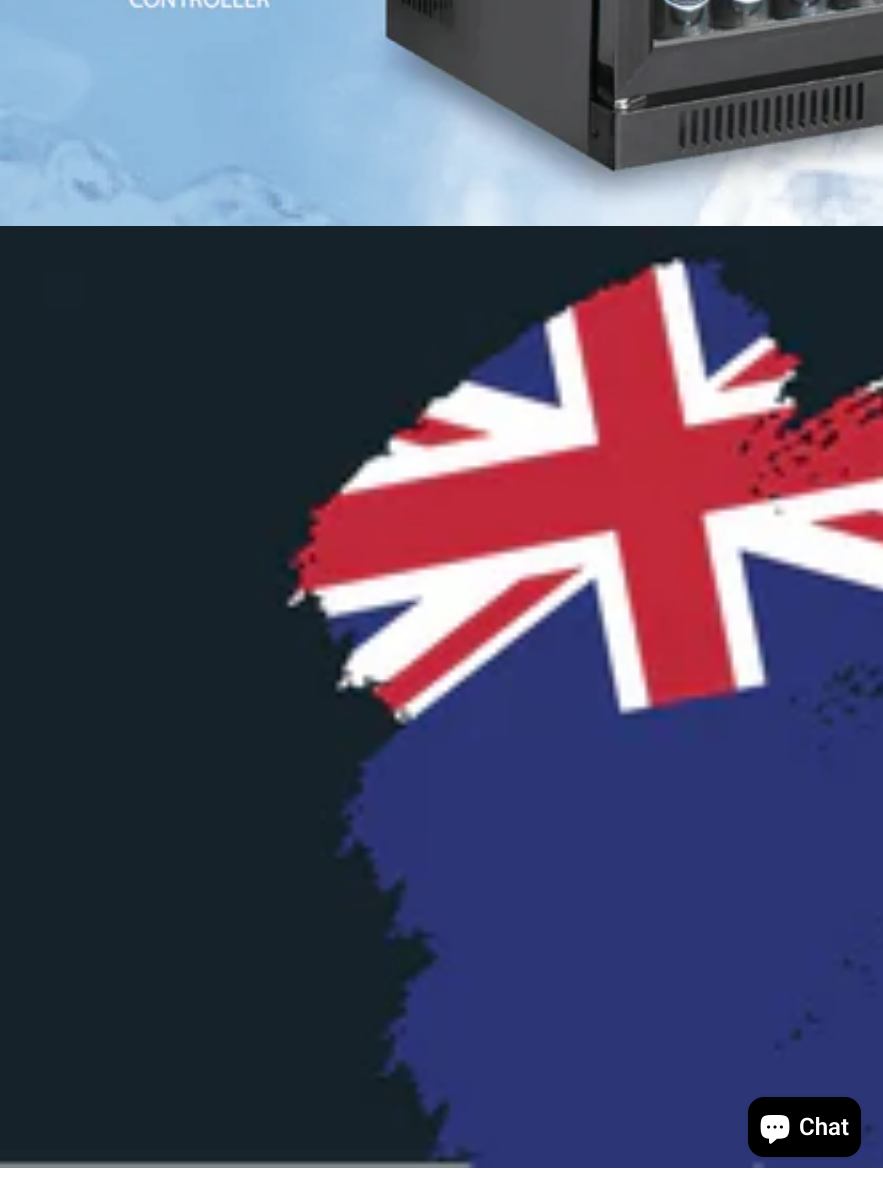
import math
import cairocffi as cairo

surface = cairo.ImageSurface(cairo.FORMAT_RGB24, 883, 1178)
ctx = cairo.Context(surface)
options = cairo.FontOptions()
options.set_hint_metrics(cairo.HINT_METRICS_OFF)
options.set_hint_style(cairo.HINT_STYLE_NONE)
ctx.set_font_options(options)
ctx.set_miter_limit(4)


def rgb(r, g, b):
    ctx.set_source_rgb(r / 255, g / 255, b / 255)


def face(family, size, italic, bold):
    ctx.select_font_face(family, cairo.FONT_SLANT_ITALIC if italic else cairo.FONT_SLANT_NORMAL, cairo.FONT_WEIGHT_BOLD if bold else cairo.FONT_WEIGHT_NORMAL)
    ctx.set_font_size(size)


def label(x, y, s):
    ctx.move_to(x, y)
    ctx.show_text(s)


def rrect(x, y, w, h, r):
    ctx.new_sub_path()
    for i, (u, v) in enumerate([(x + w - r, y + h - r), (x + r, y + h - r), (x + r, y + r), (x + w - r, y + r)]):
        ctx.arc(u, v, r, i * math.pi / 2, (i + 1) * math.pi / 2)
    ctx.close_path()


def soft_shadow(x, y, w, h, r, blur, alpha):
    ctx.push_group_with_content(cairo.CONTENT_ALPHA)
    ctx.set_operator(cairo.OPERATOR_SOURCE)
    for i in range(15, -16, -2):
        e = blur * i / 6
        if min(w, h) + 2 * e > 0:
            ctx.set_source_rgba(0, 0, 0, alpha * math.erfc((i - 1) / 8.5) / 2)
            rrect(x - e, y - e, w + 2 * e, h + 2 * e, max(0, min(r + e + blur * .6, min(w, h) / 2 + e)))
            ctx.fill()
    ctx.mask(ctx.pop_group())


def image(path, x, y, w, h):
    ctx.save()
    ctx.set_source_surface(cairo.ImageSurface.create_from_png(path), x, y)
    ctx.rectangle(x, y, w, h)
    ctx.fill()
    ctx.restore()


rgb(255, 255, 255)
ctx.paint()
image('image0.png', 0, 0, 883, 226)
image('image1.png', 0, 226, 883, 942)
rgb(0, 0, 0)
soft_shadow(748, 1097, 113, 60, 16, 2.5, 0.15)
rgb(0, 0, 0)
rrect(748, 1097, 113, 60, 16)
ctx.fill()
image('image2.png', 760, 1115, 30, 29)
face('Roboto SemiBold', 24, 0, 0)
rgb(255, 255, 255)
label(799, 1135, 'Chat')
surface.write_to_png('render.png')
